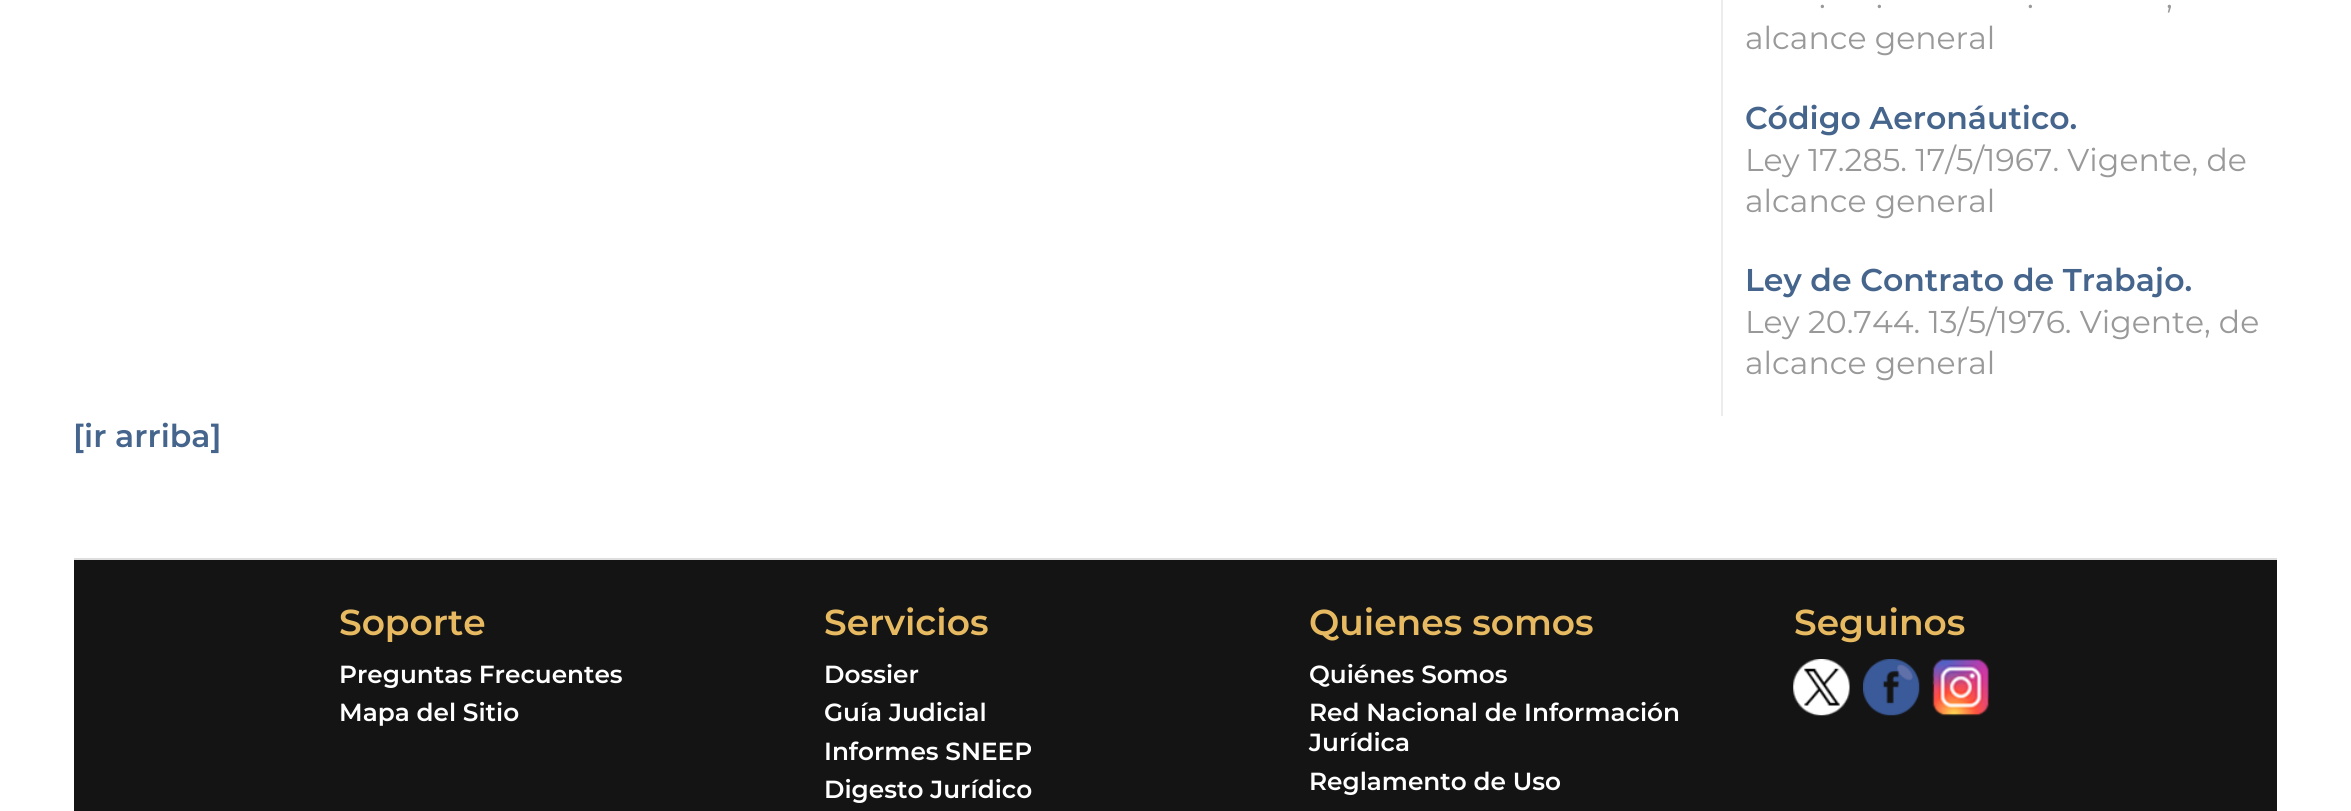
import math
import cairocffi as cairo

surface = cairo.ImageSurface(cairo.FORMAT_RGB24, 2351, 811)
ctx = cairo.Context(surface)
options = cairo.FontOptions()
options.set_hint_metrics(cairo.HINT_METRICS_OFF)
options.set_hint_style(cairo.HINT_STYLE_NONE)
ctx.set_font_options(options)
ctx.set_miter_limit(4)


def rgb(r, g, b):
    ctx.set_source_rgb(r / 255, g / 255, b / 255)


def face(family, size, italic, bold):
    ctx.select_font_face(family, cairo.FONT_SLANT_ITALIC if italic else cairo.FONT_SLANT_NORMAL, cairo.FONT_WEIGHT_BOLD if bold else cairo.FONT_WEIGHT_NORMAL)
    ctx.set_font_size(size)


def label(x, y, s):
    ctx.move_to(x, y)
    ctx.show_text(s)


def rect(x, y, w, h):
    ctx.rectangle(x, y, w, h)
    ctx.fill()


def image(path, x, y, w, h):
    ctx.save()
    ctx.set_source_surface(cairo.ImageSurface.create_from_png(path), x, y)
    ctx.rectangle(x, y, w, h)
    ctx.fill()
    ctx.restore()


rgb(255, 255, 255)
ctx.paint()
rgb(236, 236, 236)
rect(1721, 0, 2, 416)
face('Montserrat', 31.5, 0, 0)
rgb(153, 153, 153)
label(1819, 8, '.')
label(1876, 8, '.')
label(2027, 8, '.')
label(2166, 8, ',')
label(1745, 49, 'alcance general')
face('Montserrat SemiBold', 31.5, 0, 0)
rgb(69, 101, 141)
label(1745, 129, 'Código Aeronáutico.')
face('Montserrat', 31.5, 0, 0)
rgb(153, 153, 153)
label(1745, 171, 'Ley 17.285. 17/5/1967. Vigente, de')
label(1745, 212, 'alcance general')
face('Montserrat SemiBold', 31.5, 0, 0)
rgb(69, 101, 141)
label(1745, 291, 'Ley de Contrato de Trabajo.')
face('Montserrat', 31.5, 0, 0)
rgb(153, 153, 153)
label(1745, 333, 'Ley 20.744. 13/5/1976. Vigente, de')
label(1745, 374, 'alcance general')
face('Montserrat SemiBold', 31.5, 0, 0)
rgb(69, 101, 141)
label(73, 447, '[ir arriba]')
rgb(20, 20, 20)
rect(74, 560, 2203, 251)
rgb(221, 221, 221)
rect(74, 558, 2203, 2)
face('Montserrat SemiBold', 36, 0, 0)
rgb(231, 186, 97)
label(339, 635, 'Soporte')
face('Montserrat SemiBold', 24.75, 0, 0)
rgb(255, 255, 255)
label(339, 683, 'Preguntas Frecuentes')
label(339, 721, 'Mapa del Sitio')
face('Montserrat SemiBold', 36, 0, 0)
rgb(231, 186, 97)
label(824, 635, 'Servicios')
face('Montserrat SemiBold', 24.75, 0, 0)
rgb(255, 255, 255)
label(824, 683, 'Dossier')
label(824, 721, 'Guía Judicial')
label(824, 760, 'Informes SNEEP')
label(824, 798, 'Digesto Jurídico')
face('Montserrat SemiBold', 36, 0, 0)
rgb(231, 186, 97)
label(1309, 635, 'Quienes somos')
face('Montserrat SemiBold', 24.75, 0, 0)
rgb(255, 255, 255)
label(1309, 683, 'Quiénes Somos')
label(1309, 721, 'Red Nacional de Información')
label(1309, 751, 'Jurídica')
label(1309, 790, 'Reglamento de Uso')
face('Montserrat SemiBold', 36, 0, 0)
rgb(231, 186, 97)
label(1794, 635, 'Seguinos')
image('image0.png', 1793, 659, 57, 57)
image('image1.png', 1863, 659, 57, 57)
image('image2.png', 1932, 659, 57, 57)
surface.write_to_png('render.png')
